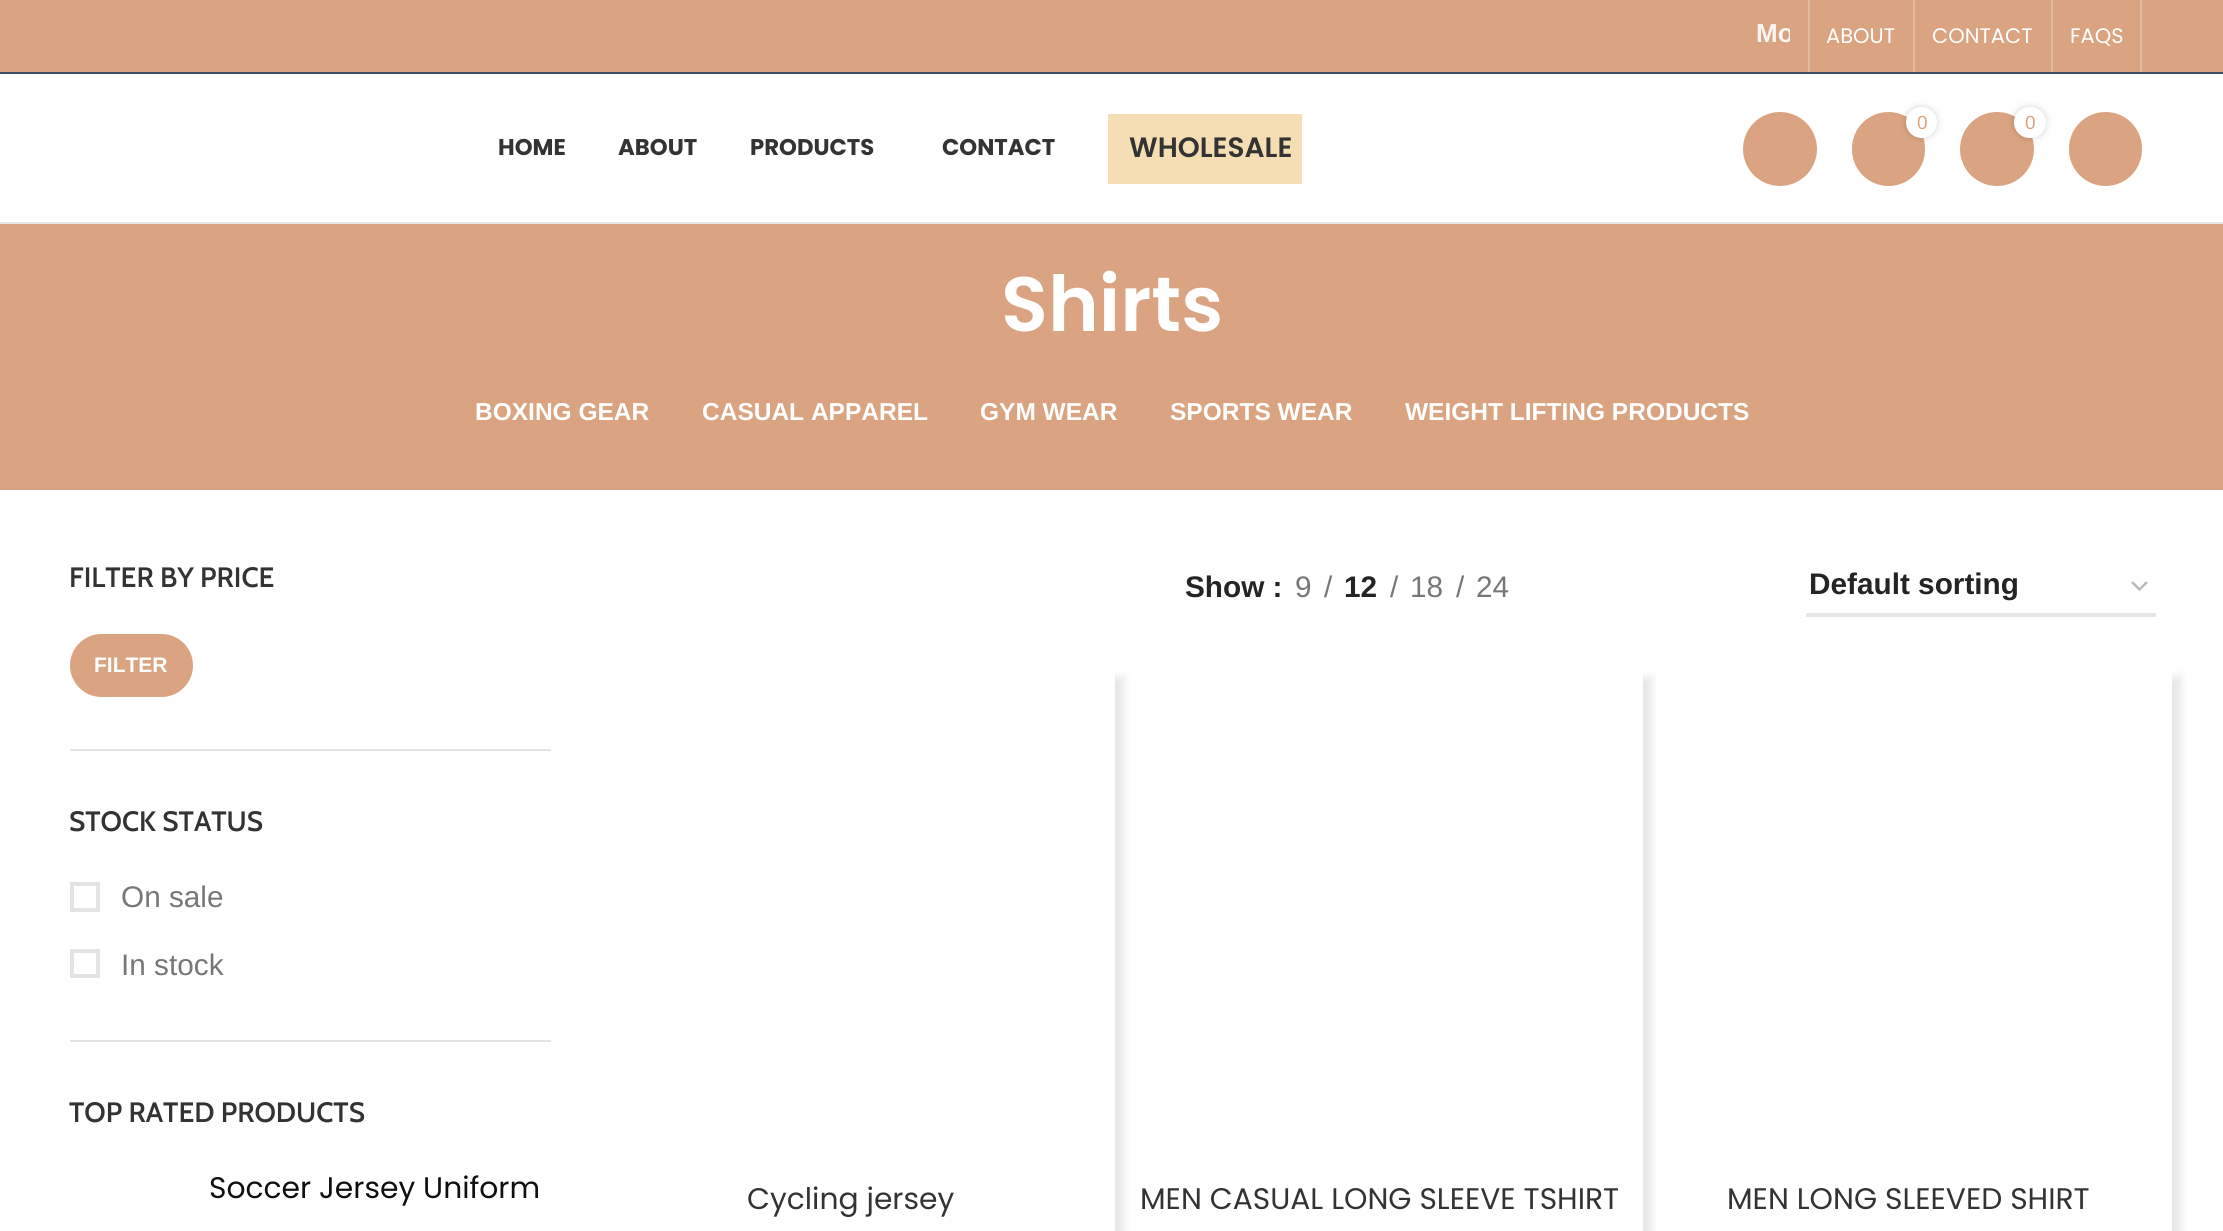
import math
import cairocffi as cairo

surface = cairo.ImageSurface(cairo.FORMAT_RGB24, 2223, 1231)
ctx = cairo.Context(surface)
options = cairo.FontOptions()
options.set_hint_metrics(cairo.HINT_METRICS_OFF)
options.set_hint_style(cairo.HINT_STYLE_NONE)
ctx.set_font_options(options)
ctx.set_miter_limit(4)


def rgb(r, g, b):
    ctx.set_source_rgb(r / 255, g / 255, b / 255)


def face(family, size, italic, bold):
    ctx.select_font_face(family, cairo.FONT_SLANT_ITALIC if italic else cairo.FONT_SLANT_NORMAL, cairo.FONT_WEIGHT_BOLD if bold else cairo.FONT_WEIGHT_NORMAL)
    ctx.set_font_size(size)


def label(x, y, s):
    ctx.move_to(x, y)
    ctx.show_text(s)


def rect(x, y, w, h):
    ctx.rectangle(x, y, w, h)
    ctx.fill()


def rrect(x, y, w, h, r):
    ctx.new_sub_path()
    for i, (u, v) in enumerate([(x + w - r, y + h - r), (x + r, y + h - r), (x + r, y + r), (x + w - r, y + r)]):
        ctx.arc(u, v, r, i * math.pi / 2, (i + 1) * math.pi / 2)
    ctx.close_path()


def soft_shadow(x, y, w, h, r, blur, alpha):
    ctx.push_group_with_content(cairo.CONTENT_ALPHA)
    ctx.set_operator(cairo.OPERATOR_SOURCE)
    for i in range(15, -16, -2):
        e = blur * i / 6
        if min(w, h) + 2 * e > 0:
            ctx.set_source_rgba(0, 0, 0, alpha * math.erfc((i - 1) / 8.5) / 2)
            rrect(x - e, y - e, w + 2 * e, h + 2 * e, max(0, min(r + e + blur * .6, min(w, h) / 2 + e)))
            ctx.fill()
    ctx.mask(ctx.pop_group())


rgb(255, 255, 255)
ctx.paint()
rgb(218, 164, 130)
rect(0, 0, 2223, 72)
rgb(58, 77, 105)
rect(0, 72, 2223, 2)
ctx.save()
ctx.rectangle(82, 18, 1708, 31)
ctx.clip()
face('Liberation Sans', 26, 0, 1)
rgb(251, 246, 243)
label(1756, 42, 'Mo')
ctx.restore()
rgb(227, 187, 161)
rect(1808, 0, 2, 72)
face('Poppins', 21, 0, 0)
rgb(255, 255, 255)
label(1826, 43, 'ABOUT')
rgb(227, 187, 161)
rect(1913, 0, 2, 72)
rgb(255, 255, 255)
label(1932, 43, 'CONTACT')
rgb(227, 187, 161)
rect(2051, 0, 2, 72)
rgb(255, 255, 255)
label(2070, 43, 'FAQS')
rgb(227, 187, 161)
rect(2140, 0, 2, 72)
rgb(218, 164, 130)
ctx.new_path()
ctx.arc(1780, 149, 37, 0, 2 * math.pi)
ctx.fill()
rrect(1852, 112, 73, 74, 36.5)
ctx.fill()
rgb(0, 0, 0)
soft_shadow(1906, 107, 31, 31, 15.5, 3.5, 0.17)
rgb(255, 255, 255)
ctx.arc(1921.5, 122.5, 15.5, 0, 2 * math.pi)
ctx.fill()
face('Liberation Sans', 19, 0, 0)
rgb(218, 164, 130)
label(1917, 129, '0')
ctx.new_path()
ctx.arc(1997, 149, 37, 0, 2 * math.pi)
ctx.fill()
rgb(0, 0, 0)
soft_shadow(2014, 107, 32, 31, 15.5, 3.5, 0.17)
rgb(255, 255, 255)
rrect(2014, 107, 32, 31, 15.5)
ctx.fill()
rgb(218, 164, 130)
label(2025, 129, '0')
rrect(2069, 112, 73, 74, 36.5)
ctx.fill()
face('Poppins', 22.75, 0, 1)
rgb(51, 51, 51)
label(498, 155, 'HOME')
label(618, 155, 'ABOUT')
label(750, 155, 'PRODUCTS')
label(942, 155, 'CONTACT')
rgb(245, 222, 179)
rect(1108, 114, 194, 70)
face('Poppins SemiBold', 28, 0, 0)
rgb(51, 51, 51)
label(1129, 157, 'WHOLESALE')
rgb(230, 230, 230)
rect(0, 222, 2223, 2)
rgb(218, 164, 130)
rect(0, 224, 2223, 266)
face('Poppins SemiBold', 77, 0, 0)
rgb(255, 255, 255)
label(1001, 331, 'Shirts')
face('Liberation Sans', 24.5, 0, 1)
label(475, 420, 'BOXING GEAR')
label(702, 420, 'CASUAL APPAREL')
label(980, 420, 'GYM WEAR')
label(1170, 420, 'SPORTS WEAR')
label(1405, 420, 'WEIGHT LIFTING PRODUCTS')
rgb(228, 228, 228)
rect(70, 749, 481, 2)
face('Cabin SemiBold', 28, 0, 0)
rgb(51, 51, 51)
label(69, 587, 'FILTER BY PRICE')
rgb(218, 164, 130)
rrect(70, 634, 123, 63, 31.5)
ctx.fill()
face('Liberation Sans', 21, 0, 1)
rgb(255, 255, 255)
label(94, 672, 'FILTER')
rgb(228, 228, 228)
rect(70, 1040, 481, 2)
face('Cabin SemiBold', 28, 0, 0)
rgb(51, 51, 51)
label(69, 831, 'STOCK STATUS')
ctx.rectangle(72, 884, 26, 26)
rgb(228, 228, 228)
ctx.set_line_width(4)
ctx.stroke()
face('Liberation Sans', 29.75, 0, 0)
rgb(119, 119, 119)
label(121, 907, 'On sale')
ctx.rectangle(72, 951, 26, 25)
rgb(228, 228, 228)
ctx.stroke()
rgb(119, 119, 119)
label(121, 975, 'In stock')
face('Cabin SemiBold', 28, 0, 0)
rgb(51, 51, 51)
label(69, 1122, 'TOP RATED PRODUCTS')
face('Poppins', 29.75, 0, 0)
rgb(15, 15, 15)
label(209, 1198, 'Soccer Jersey Uniform')
face('Liberation Sans', 29.75, 0, 1)
rgb(36, 36, 36)
label(1185, 597, 'Show :')
face('Liberation Sans', 29.75, 0, 0)
rgb(119, 119, 119)
label(1295, 597, '9')
label(1324, 597, '/')
face('Liberation Sans', 29.75, 0, 1)
rgb(36, 36, 36)
label(1344, 597, '12')
face('Liberation Sans', 29.75, 0, 0)
rgb(119, 119, 119)
label(1390, 597, '/')
label(1410, 597, '18')
label(1456, 597, '/')
label(1476, 597, '24')
ctx.new_path()
ctx.move_to(2132, 582)
ctx.line_to(2139.5, 589.5)
ctx.line_to(2147, 582)
rgb(187, 187, 187)
ctx.set_line_width(2.5)
ctx.stroke()
rgb(230, 230, 230)
rect(1806, 613, 350, 4)
face('Liberation Sans', 29.75, 0, 1)
rgb(36, 36, 36)
label(1809, 594, 'Default sorting')
ctx.save()
ctx.set_fill_rule(cairo.FILL_RULE_EVEN_ODD)
ctx.new_path()
ctx.move_to(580, 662)
ctx.line_to(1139, 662)
ctx.line_to(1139, 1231)
ctx.line_to(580, 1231)
ctx.close_path()
ctx.move_to(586, 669)
ctx.line_to(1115, 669)
ctx.line_to(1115, 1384)
ctx.line_to(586, 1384)
ctx.close_path()
ctx.clip()
rgb(0, 0, 0)
soft_shadow(595, 677, 529, 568, 0, 4.5, 0.1)
ctx.restore()
face('Poppins', 29.75, 0, 0)
rgb(51, 51, 51)
label(747, 1209, 'Cycling jersey')
ctx.save()
ctx.rectangle(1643, 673, 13, 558)
ctx.clip()
rgb(0, 0, 0)
soft_shadow(1124, 677, 528, 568, 0, 4.5, 0.1)
ctx.restore()
label(1140, 1209, 'MEN CASUAL LONG SLEEVE TSHIRT')
ctx.save()
ctx.set_fill_rule(cairo.FILL_RULE_EVEN_ODD)
ctx.new_path()
ctx.move_to(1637, 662)
ctx.line_to(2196, 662)
ctx.line_to(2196, 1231)
ctx.line_to(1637, 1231)
ctx.close_path()
ctx.move_to(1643, 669)
ctx.line_to(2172, 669)
ctx.line_to(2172, 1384)
ctx.line_to(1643, 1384)
ctx.close_path()
ctx.clip()
rgb(0, 0, 0)
soft_shadow(1652, 677, 529, 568, 0, 4.5, 0.1)
ctx.restore()
label(1727, 1209, 'MEN LONG SLEEVED SHIRT')
surface.write_to_png('render.png')
